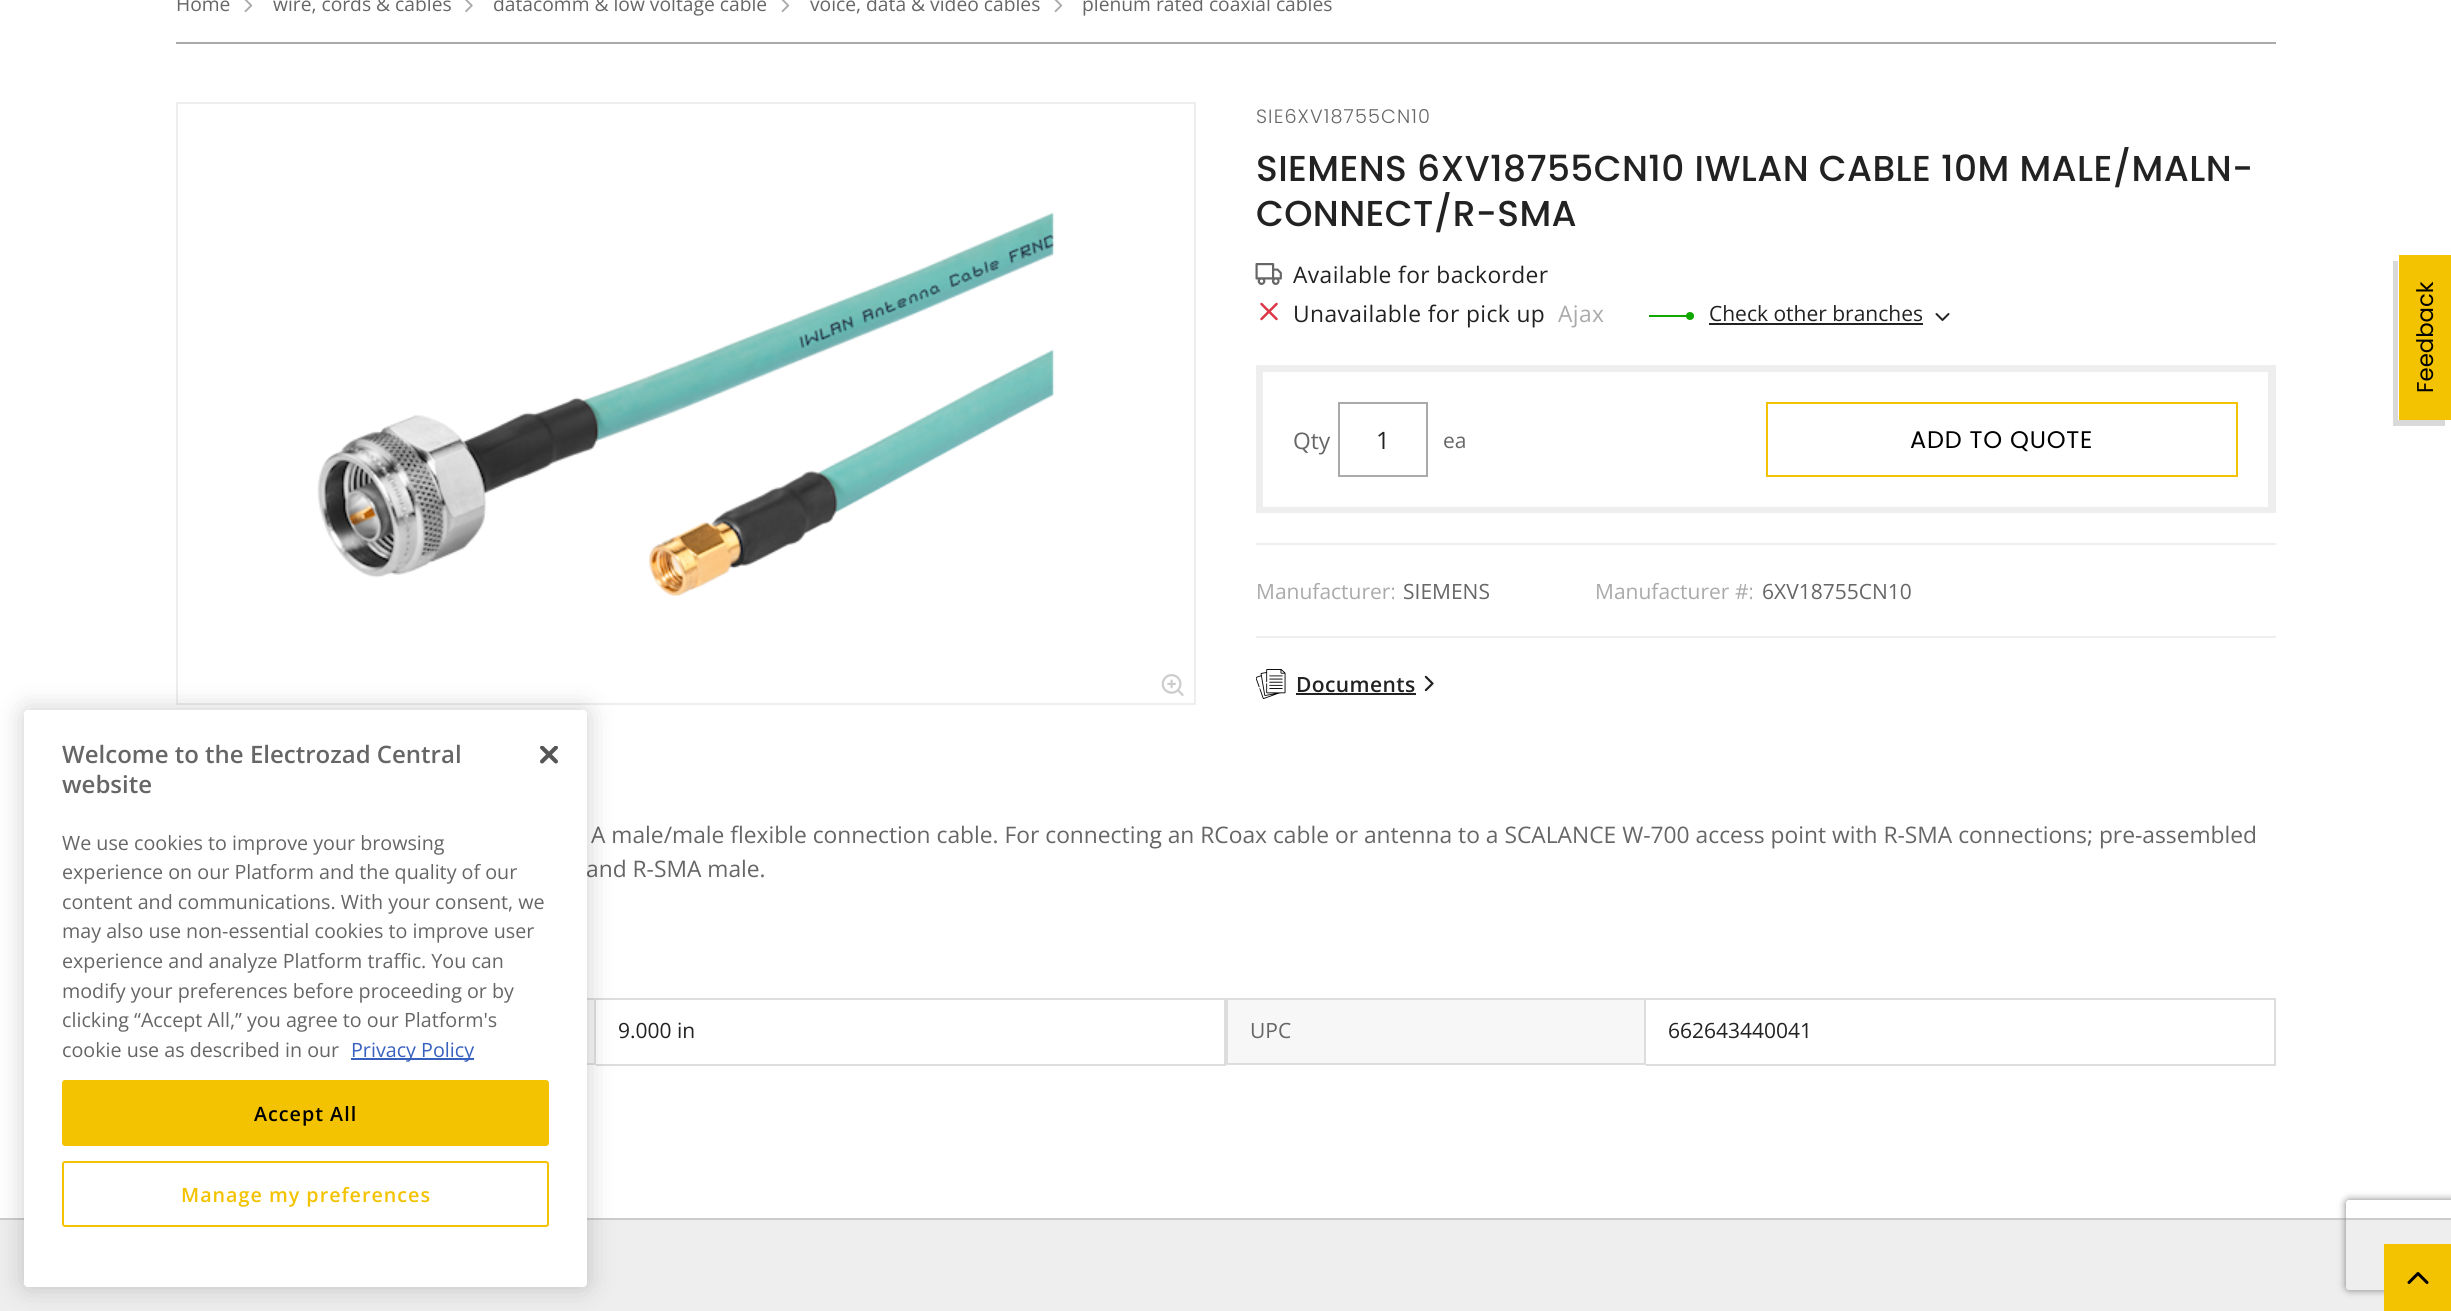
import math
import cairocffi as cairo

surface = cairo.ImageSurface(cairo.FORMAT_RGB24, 2451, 1311)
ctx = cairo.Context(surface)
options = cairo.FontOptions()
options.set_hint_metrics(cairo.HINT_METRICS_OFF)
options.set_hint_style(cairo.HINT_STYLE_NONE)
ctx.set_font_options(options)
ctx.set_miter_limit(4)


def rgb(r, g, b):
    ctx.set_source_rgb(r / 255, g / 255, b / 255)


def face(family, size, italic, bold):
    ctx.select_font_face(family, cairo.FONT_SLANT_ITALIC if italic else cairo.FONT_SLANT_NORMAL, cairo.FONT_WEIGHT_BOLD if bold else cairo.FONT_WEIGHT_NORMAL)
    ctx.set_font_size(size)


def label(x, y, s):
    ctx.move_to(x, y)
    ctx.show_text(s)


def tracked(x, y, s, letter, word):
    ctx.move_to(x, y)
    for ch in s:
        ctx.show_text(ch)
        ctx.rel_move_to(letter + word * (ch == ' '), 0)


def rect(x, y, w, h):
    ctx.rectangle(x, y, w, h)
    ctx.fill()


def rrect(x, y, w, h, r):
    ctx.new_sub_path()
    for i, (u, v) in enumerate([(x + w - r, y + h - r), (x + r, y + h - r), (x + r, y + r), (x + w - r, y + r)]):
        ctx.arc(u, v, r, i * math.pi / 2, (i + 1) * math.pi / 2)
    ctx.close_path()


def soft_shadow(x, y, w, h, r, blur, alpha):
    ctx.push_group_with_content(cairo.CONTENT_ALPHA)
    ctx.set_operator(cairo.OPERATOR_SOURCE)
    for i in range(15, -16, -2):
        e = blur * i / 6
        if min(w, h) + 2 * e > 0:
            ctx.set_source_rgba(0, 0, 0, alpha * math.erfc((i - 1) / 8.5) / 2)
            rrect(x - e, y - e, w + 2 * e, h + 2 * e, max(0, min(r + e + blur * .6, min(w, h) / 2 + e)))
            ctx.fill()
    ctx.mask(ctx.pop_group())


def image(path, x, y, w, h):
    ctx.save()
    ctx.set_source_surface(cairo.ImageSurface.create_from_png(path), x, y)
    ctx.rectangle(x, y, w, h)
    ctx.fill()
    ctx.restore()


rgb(255, 255, 255)
ctx.paint()
rgb(170, 170, 170)
rect(176, 42, 2100, 2)
face('Open Sans', 19.25, 0, 0)
rgb(102, 102, 102)
label(176, 11, 'Home')
image('image0.png', 244, 0, 9, 13)
label(273, 11, 'wire, cords & cables')
image('image1.png', 465, 0, 8, 13)
label(493, 11, 'datacomm & low voltage cable')
image('image0.png', 781, 0, 9, 13)
label(810, 11, 'voice, data & video cables')
image('image0.png', 1054, 0, 9, 13)
label(1082, 11, 'plenum rated coaxial cables')
ctx.rectangle(177, 103, 1018, 601)
rgb(238, 238, 238)
ctx.stroke()
image('image2.png', 317, 212, 738, 384)
image('image3.png', 1161, 674, 23, 22)
face('Poppins Light', 19.25, 0, 0)
rgb(102, 102, 102)
tracked(1256, 123, 'SIE6XV18755CN10', 1.1, 0)
face('Poppins Medium', 36, 0, 0)
rgb(34, 34, 34)
tracked(1256, 181, 'SIEMENS 6XV18755CN10 IWLAN CABLE 10M MALE/MALN-', 0.4, 0)
tracked(1256, 226, 'CONNECT/R-SMA', 0.4, 0)
image('image4.png', 1255, 263, 27, 22)
face('Open Sans', 22.8, 0, 0)
tracked(1293, 283, 'Available for backorder', 0.4, 0)
image('image5.png', 1260, 302, 18, 19)
tracked(1293, 322, 'Unavailable for pick up', 0.4, 0)
rgb(170, 170, 170)
tracked(1558, 322, 'Ajax', 0.4, 0)
rgb(16, 167, 0)
rect(1649, 315, 45, 2)
ctx.new_path()
ctx.arc(1690, 316, 4, 0, 2 * math.pi)
ctx.fill()
face('Open Sans', 21, 0, 0)
rgb(34, 34, 34)
label(1709, 321, 'Check other branches')
rect(1709, 323, 214, 2)
image('image6.png', 1935, 313, 15, 8)
rgb(238, 238, 238)
rect(1256, 365, 1020, 7)
rect(2268, 365, 8, 148)
rect(1256, 507, 1020, 6)
rect(1256, 365, 7, 148)
face('Open Sans', 22.8, 0, 0)
rgb(102, 102, 102)
label(1293, 449, 'Qty')
ctx.rectangle(1339, 403, 88, 73)
rgb(170, 170, 170)
ctx.stroke()
face('Open Sans', 24, 0, 0)
rgb(34, 34, 34)
label(1376, 449, '1')
face('Open Sans', 21, 0, 0)
rgb(102, 102, 102)
label(1443, 448, 'ea')
ctx.rectangle(1767, 403, 470, 73)
rgb(243, 194, 0)
ctx.stroke()
face('Poppins', 24, 0, 0)
rgb(0, 0, 0)
tracked(1910, 448, 'ADD TO QUOTE', 0.75, 0)
rgb(238, 238, 238)
rect(1256, 543, 1020, 2)
face('Open Sans', 21, 0, 0)
rgb(170, 170, 170)
label(1256, 599, 'Manufacturer:')
rgb(102, 102, 102)
label(1403, 599, 'SIEMENS')
rgb(170, 170, 170)
label(1595, 599, 'Manufacturer #:')
rgb(102, 102, 102)
label(1762, 599, '6XV18755CN10')
rgb(238, 238, 238)
rect(1256, 636, 1020, 2)
image('image7.png', 1256, 669, 30, 30)
face('Open Sans SemiBold', 21, 0, 0)
rgb(34, 34, 34)
tracked(1296, 692, 'Documents', 0.4, 0)
rect(1296, 693, 120, 2)
image('image8.png', 1424, 675, 10, 17)
face('Open Sans', 22.8, 0, 0)
rgb(102, 102, 102)
label(591, 843, 'A male/male flexible connection cable. For connecting an RCoax cable or antenna to a SCALANCE W-700 access point with R-SMA connections; pre-assembled')
label(586, 877, 'and R-SMA male.')
rgb(247, 247, 247)
rect(587, 1000, 7, 63)
ctx.rectangle(177, 999, 418, 65)
rgb(221, 221, 221)
ctx.stroke()
rect(596, 998, 630, 2)
rect(1224, 998, 2, 67)
rect(596, 1064, 630, 2)
face('Open Sans', 21, 0, 0)
rgb(34, 34, 34)
label(618, 1038, '9.000 in')
rgb(247, 247, 247)
ctx.rectangle(1227, 999, 418, 65)
ctx.fill_preserve()
rgb(221, 221, 221)
ctx.stroke()
rgb(102, 102, 102)
label(1250, 1038, 'UPC')
rgb(221, 221, 221)
rect(1646, 998, 630, 2)
rect(2274, 998, 2, 67)
rect(1646, 1064, 630, 2)
rgb(34, 34, 34)
label(1668, 1038, '662643440041')
rgb(217, 217, 217)
ctx.new_path()
ctx.move_to(2393, 261)
ctx.line_to(2393, 426)
ctx.line_to(2445, 426)
ctx.line_to(2445, 420)
ctx.line_to(2398, 420)
ctx.line_to(2398, 261)
ctx.close_path()
ctx.fill()
rgb(243, 194, 0)
rect(2399, 255, 52, 165)
face('Poppins', 22.8, 0, 0)
rgb(0, 0, 0)
ctx.save()
ctx.translate(2433, 393)
ctx.rotate(-90 * math.pi / 180)
label(0, 0, 'Feedback')
ctx.restore()
rgb(238, 238, 238)
rect(0, 1220, 2451, 91)
rgb(204, 204, 204)
rect(0, 1218, 2451, 2)
rgb(0, 0, 0)
soft_shadow(24, 710, 563, 577, 4, 13.5, 0.2)
rgb(255, 255, 255)
rrect(24, 710, 563, 577, 4)
ctx.fill()
face('Open Sans SemiBold', 24, 0, 0)
rgb(102, 102, 102)
label(62, 763, 'Welcome to the Electrozad Central')
label(62, 793, 'website')
face('Open Sans', 19.7, 0, 0)
label(62, 850, 'We use cookies to improve your browsing')
label(62, 879, 'experience on our Platform and the quality of our')
label(62, 909, 'content and communications. With your consent, we')
label(62, 938, 'may also use non-essential cookies to improve user')
label(62, 968, 'experience and analyze Platform traffic. You can')
label(62, 998, 'modify your preferences before proceeding or by')
label(62, 1027, 'clicking “Accept All,” you agree to our Platform\'s')
label(62, 1057, 'cookie use as described in our')
rgb(56, 96, 190)
rect(351, 1058, 123, 2)
label(351, 1057, 'Privacy Policy')
image('image9.png', 540, 746, 18, 18)
rgb(243, 194, 0)
rrect(63, 1081, 485, 64, 2)
ctx.fill_preserve()
ctx.stroke()
face('Open Sans SemiBold', 19.7, 0, 0)
rgb(0, 0, 0)
tracked(254, 1121, 'Accept All', 1, 0)
rrect(63, 1162, 485, 64, 2)
rgb(243, 194, 0)
ctx.stroke()
tracked(181, 1202, 'Manage my preferences', 1, 0)
ctx.save()
ctx.set_fill_rule(cairo.FILL_RULE_EVEN_ODD)
ctx.new_path()
ctx.move_to(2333, 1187)
ctx.line_to(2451, 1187)
ctx.line_to(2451, 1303)
ctx.line_to(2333, 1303)
ctx.close_path()
ctx.move_to(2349, 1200)
ctx.line_to(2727, 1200)
ctx.curve_to(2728.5, 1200, 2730, 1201.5, 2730, 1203)
ctx.line_to(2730, 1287)
ctx.curve_to(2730, 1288.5, 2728.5, 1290, 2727, 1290)
ctx.line_to(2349, 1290)
ctx.curve_to(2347.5, 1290, 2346, 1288.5, 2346, 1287)
ctx.line_to(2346, 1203)
ctx.curve_to(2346, 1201.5, 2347.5, 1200, 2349, 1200)
ctx.close_path()
ctx.clip()
rgb(128, 128, 128)
soft_shadow(2346, 1200, 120, 90, 3, 4, 1)
ctx.restore()
rect(2384, 1244, 67, 67)
image('image10.png', 2407, 1272, 22, 12)
surface.write_to_png('render.png')
